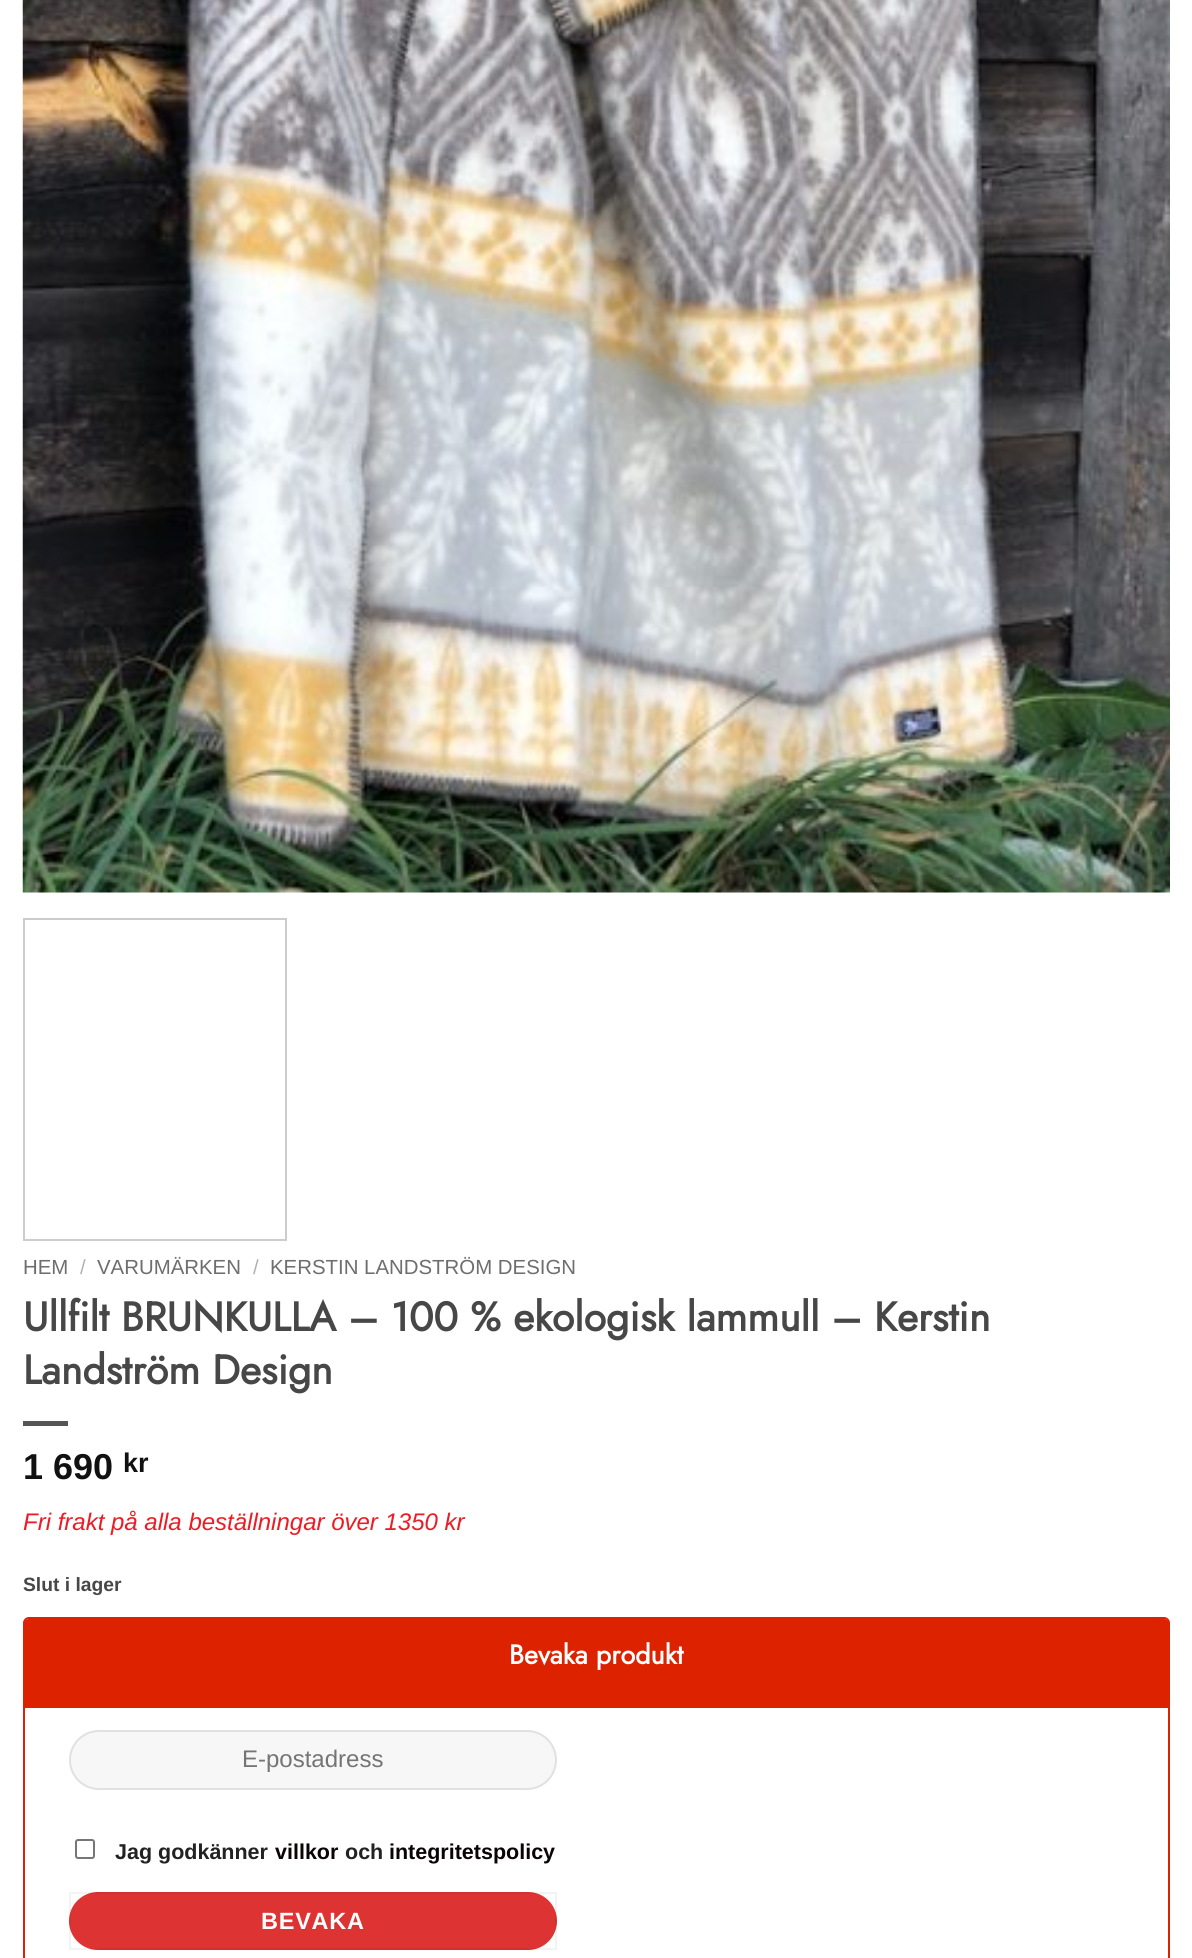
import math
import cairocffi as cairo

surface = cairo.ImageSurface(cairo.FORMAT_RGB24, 1192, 1958)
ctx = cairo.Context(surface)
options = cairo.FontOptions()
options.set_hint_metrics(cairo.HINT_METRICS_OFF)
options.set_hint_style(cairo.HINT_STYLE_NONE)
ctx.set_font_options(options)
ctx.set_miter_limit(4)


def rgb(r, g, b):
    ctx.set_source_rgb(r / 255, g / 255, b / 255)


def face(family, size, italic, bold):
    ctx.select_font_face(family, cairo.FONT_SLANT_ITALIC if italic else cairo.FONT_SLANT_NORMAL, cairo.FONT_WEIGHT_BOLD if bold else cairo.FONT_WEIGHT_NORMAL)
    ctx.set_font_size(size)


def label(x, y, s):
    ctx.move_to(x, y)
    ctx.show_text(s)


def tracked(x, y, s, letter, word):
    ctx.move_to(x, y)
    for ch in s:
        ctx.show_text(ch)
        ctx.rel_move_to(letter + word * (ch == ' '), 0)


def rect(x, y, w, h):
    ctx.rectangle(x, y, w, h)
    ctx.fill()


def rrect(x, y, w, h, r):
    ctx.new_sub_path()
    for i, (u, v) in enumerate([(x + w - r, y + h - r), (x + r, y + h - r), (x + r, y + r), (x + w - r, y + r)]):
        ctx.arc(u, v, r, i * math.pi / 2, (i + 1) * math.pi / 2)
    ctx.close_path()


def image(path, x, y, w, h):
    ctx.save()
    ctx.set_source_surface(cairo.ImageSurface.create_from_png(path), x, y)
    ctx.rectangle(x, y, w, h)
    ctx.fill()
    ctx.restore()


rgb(255, 255, 255)
ctx.paint()
image('image0.png', 22, 0, 1148, 893)
ctx.rectangle(24, 919, 262, 321)
rgb(204, 204, 204)
ctx.stroke()
face('Liberation Sans', 20.4, 0, 0)
rgb(110, 110, 110)
label(23, 1274, 'HEM')
rgb(178, 178, 178)
label(80, 1274, '/')
rgb(110, 110, 110)
label(97, 1274, 'VARUMÄRKEN')
rgb(178, 178, 178)
label(253, 1274, '/')
rgb(110, 110, 110)
label(270, 1274, 'KERSTIN LANDSTRÖM DESIGN')
face('Jost', 40.8, 0, 1)
rgb(71, 71, 71)
label(23, 1331, 'Ullfilt BRUNKULLA – 100 % ekologisk lammull – Kerstin')
label(23, 1384, 'Landström Design')
rgb(85, 85, 85)
rect(23, 1421, 45, 5)
face('Liberation Sans', 36, 0, 1)
rgb(17, 17, 17)
label(23, 1479, '1 690')
face('Liberation Sans', 27, 0, 1)
label(123, 1472, 'kr')
face('Liberation Sans', 24, 1, 0)
rgb(237, 28, 36)
label(23, 1530, 'Fri frakt på alla beställningar över 1350 kr')
face('Liberation Sans', 19.25, 0, 1)
rgb(71, 71, 71)
label(23, 1591, 'Slut i lager')
rrect(24, 1618, 1145, 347, 5)
rgb(221, 34, 0)
ctx.stroke()
ctx.new_path()
ctx.move_to(29, 1619)
ctx.line_to(1164, 1619)
ctx.curve_to(1167, 1619, 1169, 1621, 1169, 1624)
ctx.line_to(1169, 1707)
ctx.line_to(24, 1707)
ctx.line_to(24, 1624)
ctx.curve_to(24, 1621, 26, 1619, 29, 1619)
ctx.close_path()
ctx.fill()
rect(24, 1707, 1145, 1)
face('Jost', 27, 0, 1)
rgb(255, 255, 255)
label(509, 1664, 'Bevaka produkt')
rgb(247, 247, 247)
rrect(69, 1730, 488, 60, 30)
ctx.fill()
rrect(70, 1731, 486, 58, 29)
ctx.set_source_rgba(0, 0, 0, 0.09)
ctx.stroke()
face('Liberation Sans', 24, 0, 0)
rgb(117, 117, 117)
label(242, 1767, 'E-postadress')
rrect(76, 1840, 18, 18, 2)
rgb(118, 118, 118)
ctx.stroke()
face('Liberation Sans', 21.5, 0, 1)
rgb(34, 34, 34)
label(115, 1859, 'Jag godkänner')
rgb(10, 4, 5)
label(275, 1859, 'villkor')
rgb(34, 34, 34)
label(345, 1859, 'och')
rgb(10, 4, 5)
label(389, 1859, 'integritetspolicy')
rgb(221, 51, 51)
rrect(69, 1892, 488, 58, 29)
ctx.fill()
ctx.rectangle(70, 1893, 486, 56)
ctx.set_source_rgba(0, 0, 0, 0.05)
ctx.stroke()
face('Liberation Sans', 23.5, 0, 1)
rgb(255, 255, 255)
tracked(261, 1929, 'BEVAKA', 0.75, 0)
surface.write_to_png('render.png')
